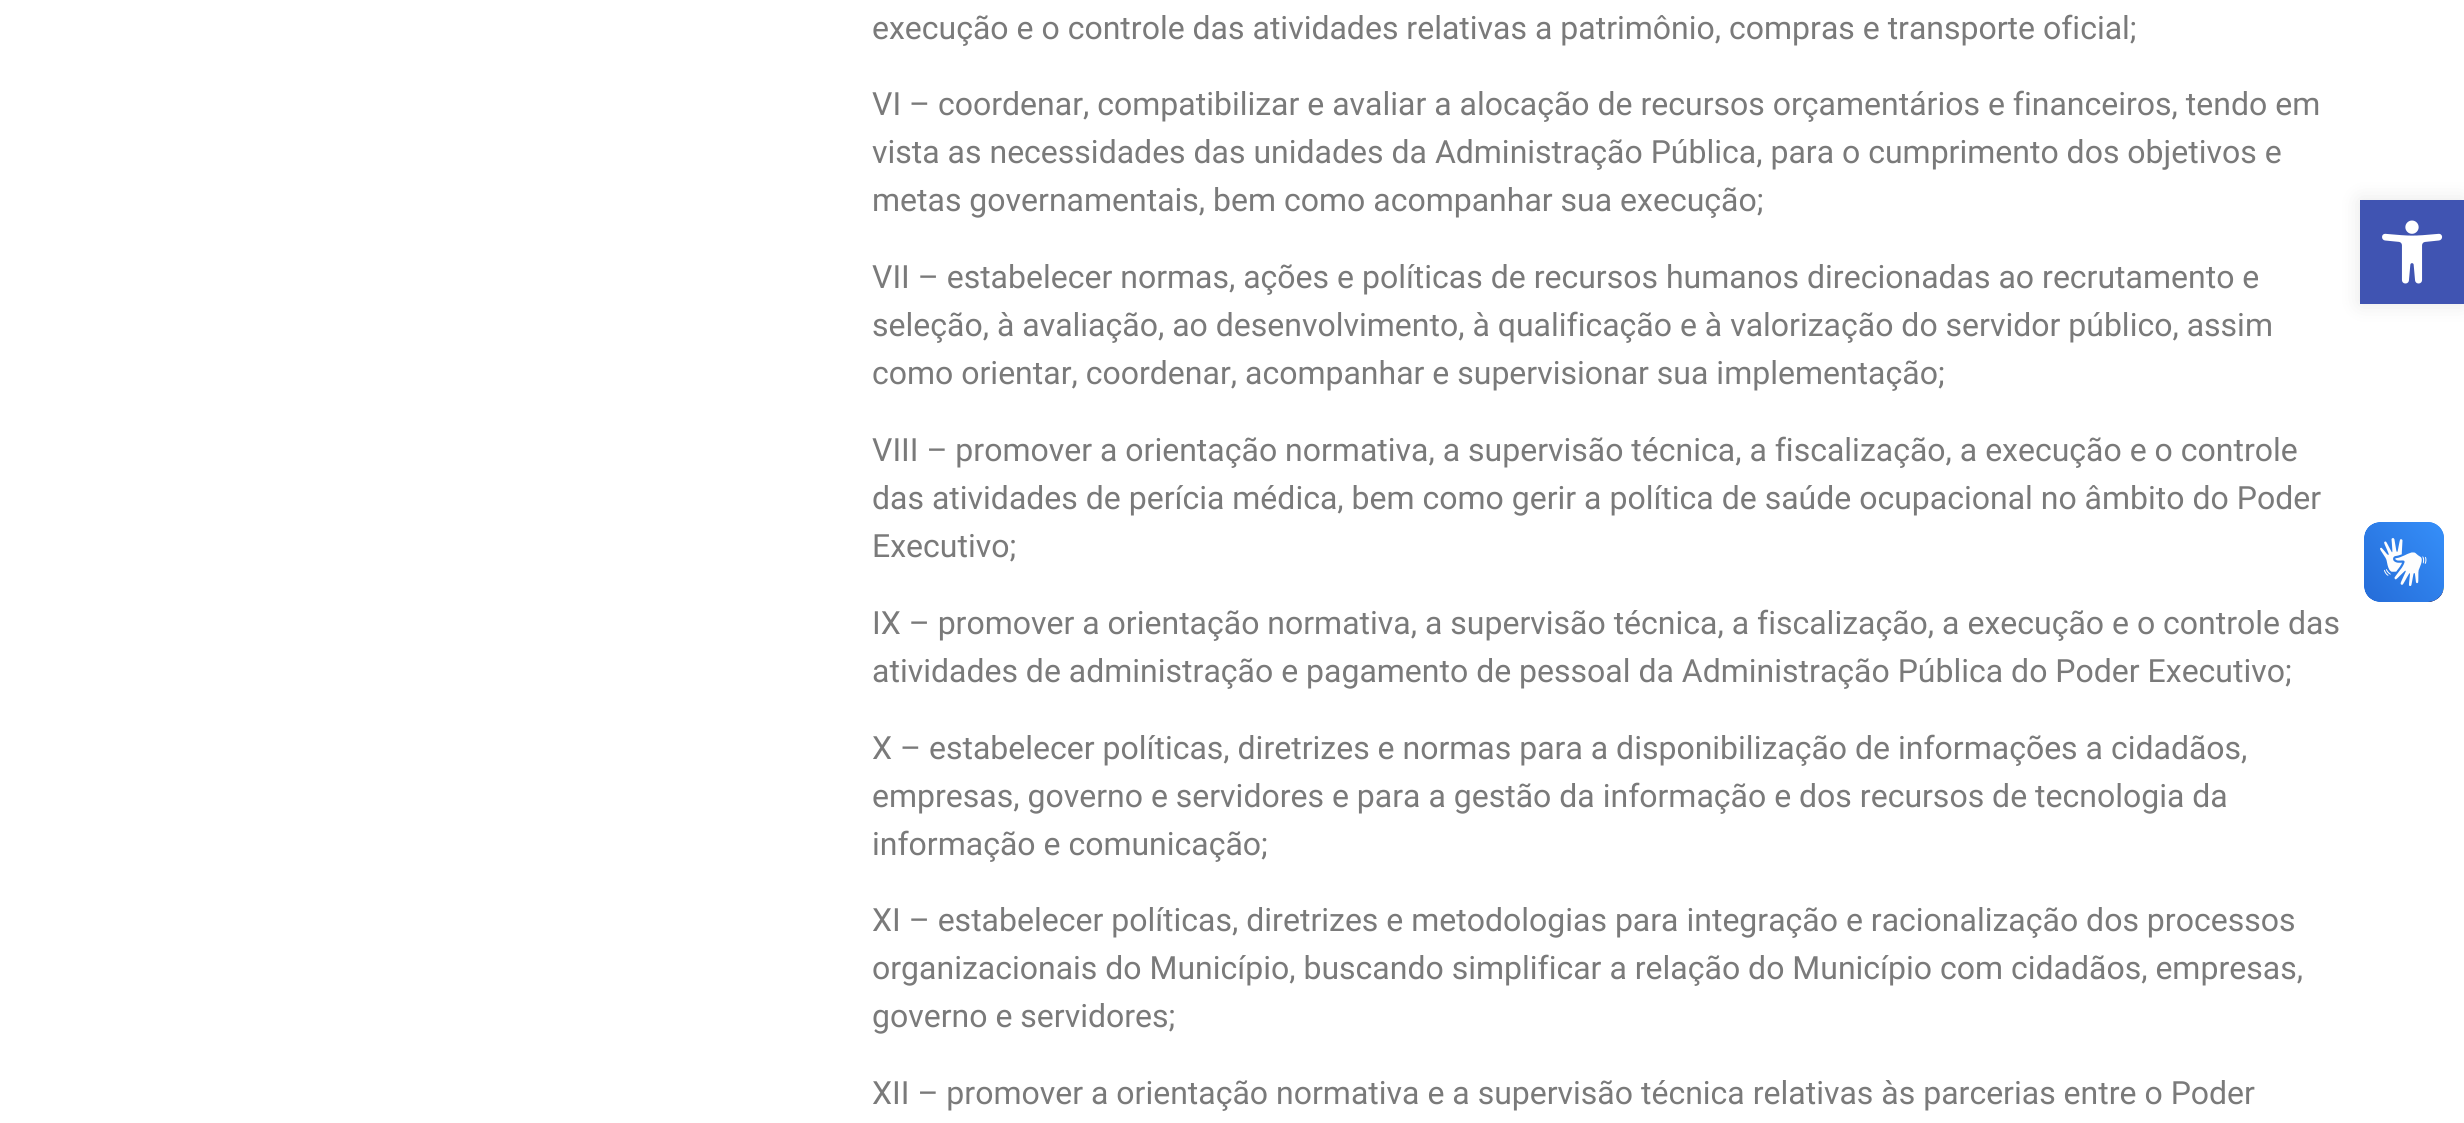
import math
import cairocffi as cairo

surface = cairo.ImageSurface(cairo.FORMAT_RGB24, 2464, 1123)
ctx = cairo.Context(surface)
options = cairo.FontOptions()
options.set_hint_metrics(cairo.HINT_METRICS_OFF)
options.set_hint_style(cairo.HINT_STYLE_NONE)
ctx.set_font_options(options)
ctx.set_miter_limit(4)


def rgb(r, g, b):
    ctx.set_source_rgb(r / 255, g / 255, b / 255)


def face(family, size, italic, bold):
    ctx.select_font_face(family, cairo.FONT_SLANT_ITALIC if italic else cairo.FONT_SLANT_NORMAL, cairo.FONT_WEIGHT_BOLD if bold else cairo.FONT_WEIGHT_NORMAL)
    ctx.set_font_size(size)


def label(x, y, s):
    ctx.move_to(x, y)
    ctx.show_text(s)


def rect(x, y, w, h):
    ctx.rectangle(x, y, w, h)
    ctx.fill()


def rrect(x, y, w, h, r):
    ctx.new_sub_path()
    for i, (u, v) in enumerate([(x + w - r, y + h - r), (x + r, y + h - r), (x + r, y + r), (x + w - r, y + r)]):
        ctx.arc(u, v, r, i * math.pi / 2, (i + 1) * math.pi / 2)
    ctx.close_path()


def soft_shadow(x, y, w, h, r, blur, alpha):
    ctx.push_group_with_content(cairo.CONTENT_ALPHA)
    ctx.set_operator(cairo.OPERATOR_SOURCE)
    for i in range(15, -16, -2):
        e = blur * i / 6
        if min(w, h) + 2 * e > 0:
            ctx.set_source_rgba(0, 0, 0, alpha * math.erfc((i - 1) / 8.5) / 2)
            rrect(x - e, y - e, w + 2 * e, h + 2 * e, max(0, min(r + e + blur * .6, min(w, h) / 2 + e)))
            ctx.fill()
    ctx.mask(ctx.pop_group())


def image(path, x, y, w, h):
    ctx.save()
    ctx.set_source_surface(cairo.ImageSurface.create_from_png(path), x, y)
    ctx.rectangle(x, y, w, h)
    ctx.fill()
    ctx.restore()


rgb(255, 255, 255)
ctx.paint()
face('Roboto', 32, 0, 0)
rgb(122, 122, 122)
label(872, 39, 'execução e o controle das atividades relativas a patrimônio, compras e transporte oficial;')
label(872, 115, 'VI – coordenar, compatibilizar e avaliar a alocação de recursos orçamentários e financeiros, tendo em')
label(872, 163, 'vista as necessidades das unidades da Administração Pública, para o cumprimento dos objetivos e')
label(872, 211, 'metas governamentais, bem como acompanhar sua execução;')
label(872, 288, 'VII – estabelecer normas, ações e políticas de recursos humanos direcionadas ao recrutamento e')
label(872, 336, 'seleção, à avaliação, ao desenvolvimento, à qualificação e à valorização do servidor público, assim')
label(872, 384, 'como orientar, coordenar, acompanhar e supervisionar sua implementação;')
label(872, 461, 'VIII – promover a orientação normativa, a supervisão técnica, a fiscalização, a execução e o controle')
label(872, 509, 'das atividades de perícia médica, bem como gerir a política de saúde ocupacional no âmbito do Poder')
label(872, 557, 'Executivo;')
label(872, 634, 'IX – promover a orientação normativa, a supervisão técnica, a fiscalização, a execução e o controle das')
label(872, 682, 'atividades de administração e pagamento de pessoal da Administração Pública do Poder Executivo;')
label(872, 759, 'X – estabelecer políticas, diretrizes e normas para a disponibilização de informações a cidadãos,')
label(872, 807, 'empresas, governo e servidores e para a gestão da informação e dos recursos de tecnologia da')
label(872, 855, 'informação e comunicação;')
label(872, 931, 'XI – estabelecer políticas, diretrizes e metodologias para integração e racionalização dos processos')
label(872, 979, 'organizacionais do Município, buscando simplificar a relação do Município com cidadãos, empresas,')
label(872, 1027, 'governo e servidores;')
label(872, 1104, 'XII – promover a orientação normativa e a supervisão técnica relativas às parcerias entre o Poder')
rgb(0, 0, 0)
soft_shadow(2360, 200, 104, 104, 0, 10, 0.1)
rgb(64, 84, 178)
rect(2360, 200, 104, 104)
image('image0.png', 2382, 220, 61, 64)
image('image1.png', 2364, 522, 80, 80)
image('image2.png', 2364, 522, 80, 80)
surface.write_to_png('render.png')
